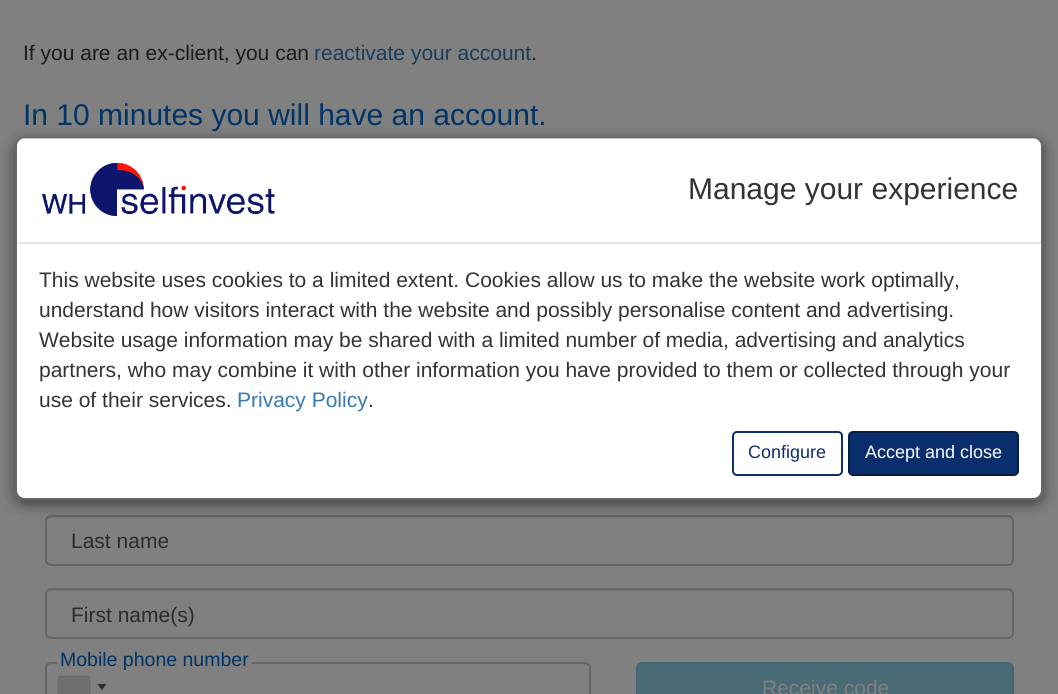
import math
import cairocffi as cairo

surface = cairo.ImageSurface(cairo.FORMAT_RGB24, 1058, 694)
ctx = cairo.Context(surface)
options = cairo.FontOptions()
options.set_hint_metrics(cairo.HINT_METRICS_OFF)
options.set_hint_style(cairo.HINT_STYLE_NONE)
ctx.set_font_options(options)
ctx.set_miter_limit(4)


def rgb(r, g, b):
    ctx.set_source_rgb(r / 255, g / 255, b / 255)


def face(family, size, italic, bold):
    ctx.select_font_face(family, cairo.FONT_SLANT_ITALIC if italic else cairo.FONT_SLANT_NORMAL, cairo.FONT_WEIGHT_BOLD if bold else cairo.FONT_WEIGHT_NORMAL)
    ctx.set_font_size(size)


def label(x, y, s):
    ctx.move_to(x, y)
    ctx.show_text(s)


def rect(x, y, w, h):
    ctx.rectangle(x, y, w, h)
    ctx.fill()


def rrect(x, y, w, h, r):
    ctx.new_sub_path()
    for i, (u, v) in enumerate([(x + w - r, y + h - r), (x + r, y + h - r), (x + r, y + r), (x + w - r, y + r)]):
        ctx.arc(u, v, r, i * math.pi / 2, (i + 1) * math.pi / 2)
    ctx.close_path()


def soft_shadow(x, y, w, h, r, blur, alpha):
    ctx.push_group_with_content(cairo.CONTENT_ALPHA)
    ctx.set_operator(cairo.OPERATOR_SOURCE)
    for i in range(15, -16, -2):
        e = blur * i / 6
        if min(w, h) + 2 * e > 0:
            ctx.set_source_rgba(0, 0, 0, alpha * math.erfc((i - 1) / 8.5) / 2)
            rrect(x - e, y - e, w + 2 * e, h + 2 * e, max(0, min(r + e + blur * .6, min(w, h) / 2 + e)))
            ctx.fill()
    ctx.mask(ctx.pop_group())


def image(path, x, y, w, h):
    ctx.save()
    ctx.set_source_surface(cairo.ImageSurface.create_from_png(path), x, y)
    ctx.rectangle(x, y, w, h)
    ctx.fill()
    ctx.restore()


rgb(128, 128, 128)
ctx.paint()
face('Liberation Sans', 21, 0, 0)
rgb(26, 26, 26)
label(23, 60, 'If you are an ex-client, you can')
rgb(26, 61, 92)
label(314, 60, 'reactivate your account')
rgb(26, 26, 26)
label(531, 60, '.')
face('Liberation Sans', 30, 0, 0)
rgb(0, 51, 102)
label(23, 125, 'In 10 minutes you will have an account.')
rgb(118, 118, 118)
ctx.new_path()
ctx.move_to(51, 518)
ctx.line_to(1008, 518)
ctx.curve_to(1010, 518, 1012, 520, 1012, 522)
ctx.line_to(1012, 562)
ctx.curve_to(1013, 561, 1013, 560, 1013, 559)
ctx.line_to(1013, 521)
ctx.curve_to(1013, 518, 1011, 516, 1008, 516)
ctx.line_to(52, 516)
ctx.curve_to(50, 516, 48, 518, 47, 520)
ctx.curve_to(48, 519, 50, 518, 51, 518)
ctx.close_path()
ctx.fill()
rrect(46, 516, 967, 49, 5)
rgb(102, 102, 102)
ctx.stroke()
face('Liberation Sans', 21, 0, 0)
rgb(43, 43, 43)
label(71, 548, 'Last name')
rgb(118, 118, 118)
ctx.new_path()
ctx.move_to(51, 591)
ctx.line_to(1008, 591)
ctx.curve_to(1010, 591, 1012, 593, 1012, 596)
ctx.line_to(1012, 634)
ctx.line_to(1011, 637)
ctx.curve_to(1012, 636, 1013, 634, 1013, 633)
ctx.line_to(1013, 595)
ctx.curve_to(1013, 592, 1011, 590, 1008, 590)
ctx.line_to(52, 590)
ctx.curve_to(50, 590, 49, 591, 48, 592)
ctx.close_path()
ctx.fill()
rrect(46, 589, 967, 49, 5)
rgb(102, 102, 102)
ctx.stroke()
rgb(43, 43, 43)
label(71, 622, 'First name(s)')
rgb(118, 118, 118)
ctx.new_path()
ctx.move_to(51, 664)
ctx.line_to(585, 664)
ctx.curve_to(587, 664, 590, 667, 590, 669)
ctx.line_to(590, 668)
ctx.curve_to(590, 665, 588, 663, 585, 663)
ctx.line_to(52, 663)
ctx.curve_to(50, 663, 48, 664, 47, 666)
ctx.curve_to(48, 665, 50, 664, 51, 664)
ctx.close_path()
ctx.fill()
rrect(46, 663, 544, 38, 5)
rgb(102, 102, 102)
ctx.stroke()
rgb(128, 128, 128)
rect(57, 662, 195, 2)
face('Liberation Sans', 19.5, 0, 0)
rgb(0, 51, 102)
label(60, 666, 'Mobile phone number')
rgb(68, 68, 68)
soft_shadow(59, 677, 30, 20, 0, 1, 1)
rgb(110, 110, 110)
rect(59, 677, 30, 17)
rgb(43, 43, 43)
ctx.new_path()
ctx.move_to(97.5, 684)
ctx.line_to(106.5, 684)
ctx.line_to(102, 690)
ctx.close_path()
ctx.fill()
rgb(74, 107, 117)
rrect(637, 663, 376, 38, 5)
ctx.fill_preserve()
rgb(68, 105, 116)
ctx.stroke()
face('Liberation Sans', 21, 0, 0)
rgb(128, 128, 128)
label(762, 695, 'Receive code')
ctx.save()
ctx.set_fill_rule(cairo.FILL_RULE_EVEN_ODD)
ctx.new_path()
ctx.move_to(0, 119)
ctx.line_to(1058, 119)
ctx.line_to(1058, 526)
ctx.line_to(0, 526)
ctx.close_path()
ctx.move_to(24, 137)
ctx.line_to(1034, 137)
ctx.curve_to(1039, 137, 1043, 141, 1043, 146)
ctx.line_to(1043, 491)
ctx.curve_to(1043, 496, 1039, 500, 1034, 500)
ctx.line_to(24, 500)
ctx.curve_to(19, 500, 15, 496, 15, 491)
ctx.line_to(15, 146)
ctx.curve_to(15, 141, 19, 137, 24, 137)
ctx.close_path()
ctx.clip()
rgb(0, 0, 0)
soft_shadow(15, 141, 1028, 363, 9, 7, 0.5)
ctx.restore()
rgb(255, 255, 255)
rrect(17, 138, 1024, 360, 8)
ctx.fill()
rrect(16, 138, 1026, 361, 8)
ctx.set_source_rgba(0, 0, 0, 0.2)
ctx.stroke()
rgb(229, 229, 229)
rect(17, 242, 1024, 2)
image('image0.png', 42, 162, 233, 54)
face('Liberation Sans', 30, 0, 0)
rgb(51, 51, 51)
label(688, 199, 'Manage your experience')
face('Liberation Sans', 21, 0, 0)
label(39, 287, 'This website uses cookies to a limited extent. Cookies allow us to make the website work optimally,')
label(39, 317, 'understand how visitors interact with the website and possibly personalise content and advertising.')
label(39, 347, 'Website usage information may be shared with a limited number of media, advertising and analytics')
label(39, 377, 'partners, who may combine it with other information you have provided to them or collected through your')
label(39, 407, 'use of their services.')
rgb(51, 122, 183)
label(237, 407, 'Privacy Policy')
rgb(51, 51, 51)
label(368, 407, '.')
rrect(733, 432, 109, 43, 4)
rgb(14, 45, 109)
ctx.stroke()
face('Liberation Sans', 18, 0, 0)
label(748, 458, 'Configure')
rgb(10, 45, 108)
rrect(849, 432, 169, 43, 4)
ctx.fill_preserve()
rgb(6, 29, 70)
ctx.stroke()
rgb(255, 255, 255)
label(865, 458, 'Accept and close')
surface.write_to_png('render.png')
